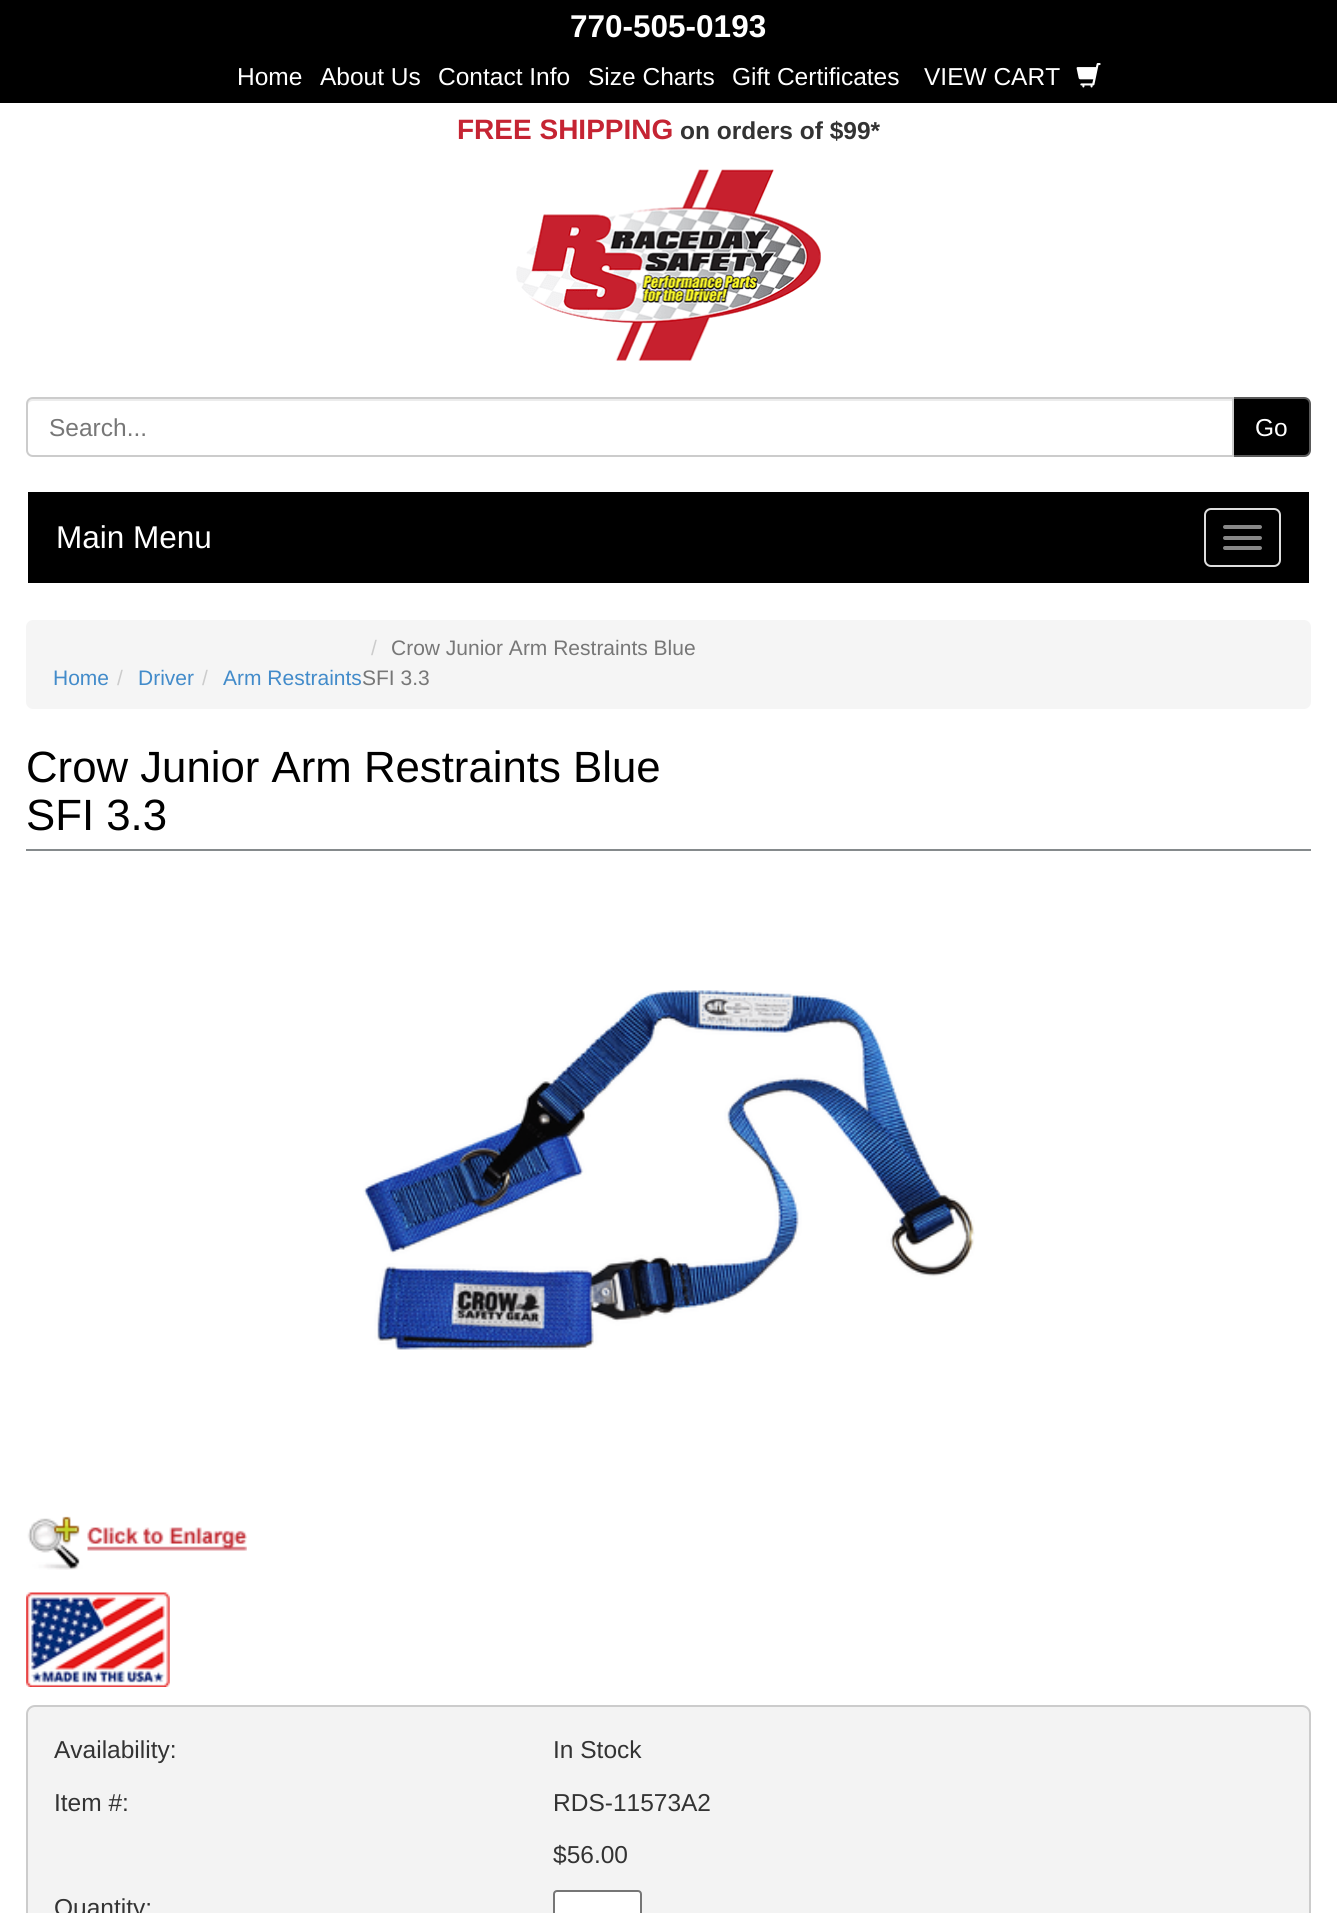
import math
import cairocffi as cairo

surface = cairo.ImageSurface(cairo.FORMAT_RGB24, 1337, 1913)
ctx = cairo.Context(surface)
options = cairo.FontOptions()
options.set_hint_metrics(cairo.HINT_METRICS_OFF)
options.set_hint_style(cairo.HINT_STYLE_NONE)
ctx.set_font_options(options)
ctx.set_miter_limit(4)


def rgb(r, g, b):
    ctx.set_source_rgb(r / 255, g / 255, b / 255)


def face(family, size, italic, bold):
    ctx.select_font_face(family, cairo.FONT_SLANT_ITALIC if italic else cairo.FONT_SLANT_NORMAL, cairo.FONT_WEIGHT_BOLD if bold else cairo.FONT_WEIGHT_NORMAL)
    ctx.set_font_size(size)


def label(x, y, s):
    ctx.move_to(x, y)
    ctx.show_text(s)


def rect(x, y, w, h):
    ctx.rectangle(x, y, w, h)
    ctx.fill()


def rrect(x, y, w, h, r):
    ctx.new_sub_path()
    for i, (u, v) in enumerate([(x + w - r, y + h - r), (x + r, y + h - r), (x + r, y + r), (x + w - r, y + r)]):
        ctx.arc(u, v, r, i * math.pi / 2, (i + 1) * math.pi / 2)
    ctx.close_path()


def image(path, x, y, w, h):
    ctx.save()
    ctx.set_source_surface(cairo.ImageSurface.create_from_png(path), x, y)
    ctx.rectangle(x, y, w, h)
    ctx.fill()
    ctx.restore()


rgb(255, 255, 255)
ctx.paint()
rgb(0, 0, 0)
rect(0, 0, 1337, 103)
face('Liberation Sans', 31.5, 0, 1)
rgb(255, 255, 255)
label(570, 37, '770-505-0193')
face('Liberation Sans', 24.5, 0, 0)
label(237, 85, 'Home')
label(320, 85, 'About Us')
label(438, 85, 'Contact Info')
label(588, 85, 'Size Charts')
label(732, 85, 'Gift Certificates')
label(924, 85, 'VIEW CART')
image('image0.png', 1076, 63, 25, 25)
face('Liberation Sans', 28, 0, 1)
rgb(197, 36, 51)
label(457, 139, 'FREE SHIPPING')
face('Liberation Sans', 24.5, 0, 1)
rgb(51, 51, 51)
label(680, 139, 'on orders of $99*')
image('image1.png', 516, 169, 305, 192)
rgb(0, 0, 0)
ctx.new_path()
ctx.move_to(1233, 398)
ctx.line_to(1304, 398)
ctx.curve_to(1307.5, 398, 1310, 400.5, 1310, 404)
ctx.line_to(1310, 450)
ctx.curve_to(1310, 453.5, 1307.5, 456, 1304, 456)
ctx.line_to(1233, 456)
ctx.close_path()
ctx.fill_preserve()
rgb(89, 89, 89)
ctx.stroke()
rgb(255, 255, 255)
ctx.new_path()
ctx.move_to(33, 397)
ctx.line_to(1234, 397)
ctx.line_to(1234, 457)
ctx.line_to(33, 457)
ctx.curve_to(29, 457, 26, 454, 26, 450)
ctx.line_to(26, 404)
ctx.curve_to(26, 400, 29, 397, 33, 397)
ctx.close_path()
ctx.fill()
rgb(236, 236, 236)
ctx.new_path()
ctx.move_to(33, 401)
ctx.line_to(1232, 401)
ctx.line_to(1232, 399)
ctx.line_to(33, 399)
ctx.curve_to(30, 399, 28, 401, 28, 404)
ctx.line_to(28, 406)
ctx.curve_to(28, 403, 30, 401, 33, 401)
ctx.close_path()
ctx.fill()
ctx.new_path()
ctx.move_to(33, 398)
ctx.line_to(1233, 398)
ctx.line_to(1233, 456)
ctx.line_to(33, 456)
ctx.curve_to(29.5, 456, 27, 453.5, 27, 450)
ctx.line_to(27, 404)
ctx.curve_to(27, 400.5, 29.5, 398, 33, 398)
ctx.close_path()
rgb(204, 204, 204)
ctx.stroke()
face('Liberation Sans', 24.5, 0, 0)
rgb(119, 119, 119)
label(49, 436, 'Search...')
rgb(255, 255, 255)
label(1255, 436, 'Go')
rgb(0, 0, 0)
rect(28, 492, 1281, 91)
face('Liberation Sans', 31.5, 0, 0)
rgb(255, 255, 255)
label(56, 548, 'Main Menu')
rrect(1205, 509, 75, 57, 6)
rgb(221, 221, 221)
ctx.stroke()
rgb(136, 136, 136)
rrect(1223, 525, 39, 4, 2)
ctx.fill()
rrect(1223, 536, 39, 4, 2)
ctx.fill()
rrect(1223, 546, 39, 4, 2)
ctx.fill()
rgb(245, 245, 245)
rrect(26, 620, 1285, 89, 7)
ctx.fill()
face('Liberation Sans', 21, 0, 0)
rgb(66, 139, 202)
label(53, 685, 'Home')
rgb(204, 204, 204)
label(117, 685, '/')
rgb(66, 139, 202)
label(138, 685, 'Driver')
rgb(204, 204, 204)
label(202, 685, '/')
rgb(66, 139, 202)
label(223, 685, 'Arm Restraints')
rgb(204, 204, 204)
label(371, 655, '/')
rgb(119, 119, 119)
label(391, 655, 'Crow Junior Arm Restraints Blue')
label(362, 685, 'SFI 3.3')
rgb(133, 138, 140)
rect(26, 849, 1285, 2)
face('Liberation Sans', 43.75, 0, 0)
rgb(0, 0, 0)
label(26, 782, 'Crow Junior Arm Restraints Blue')
label(26, 830, 'SFI 3.3')
image('image2.png', 363, 990, 612, 360)
image('image3.png', 27, 1516, 220, 54)
image('image4.png', 26, 1592, 144, 95)
rgb(243, 243, 243)
rrect(27, 1706, 1283, 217, 8)
ctx.fill_preserve()
rgb(204, 204, 204)
ctx.stroke()
face('Liberation Sans', 24.5, 0, 0)
rgb(51, 51, 51)
label(54, 1758, 'Availability:')
label(553, 1758, 'In Stock')
label(54, 1811, 'Item #:')
label(553, 1811, 'RDS-11573A2')
label(553, 1863, '$56.00')
label(54, 1916, 'Quantity:')
rgb(255, 255, 255)
rrect(554, 1891, 87, 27, 3)
ctx.fill_preserve()
rgb(118, 118, 118)
ctx.stroke()
surface.write_to_png('render.png')
